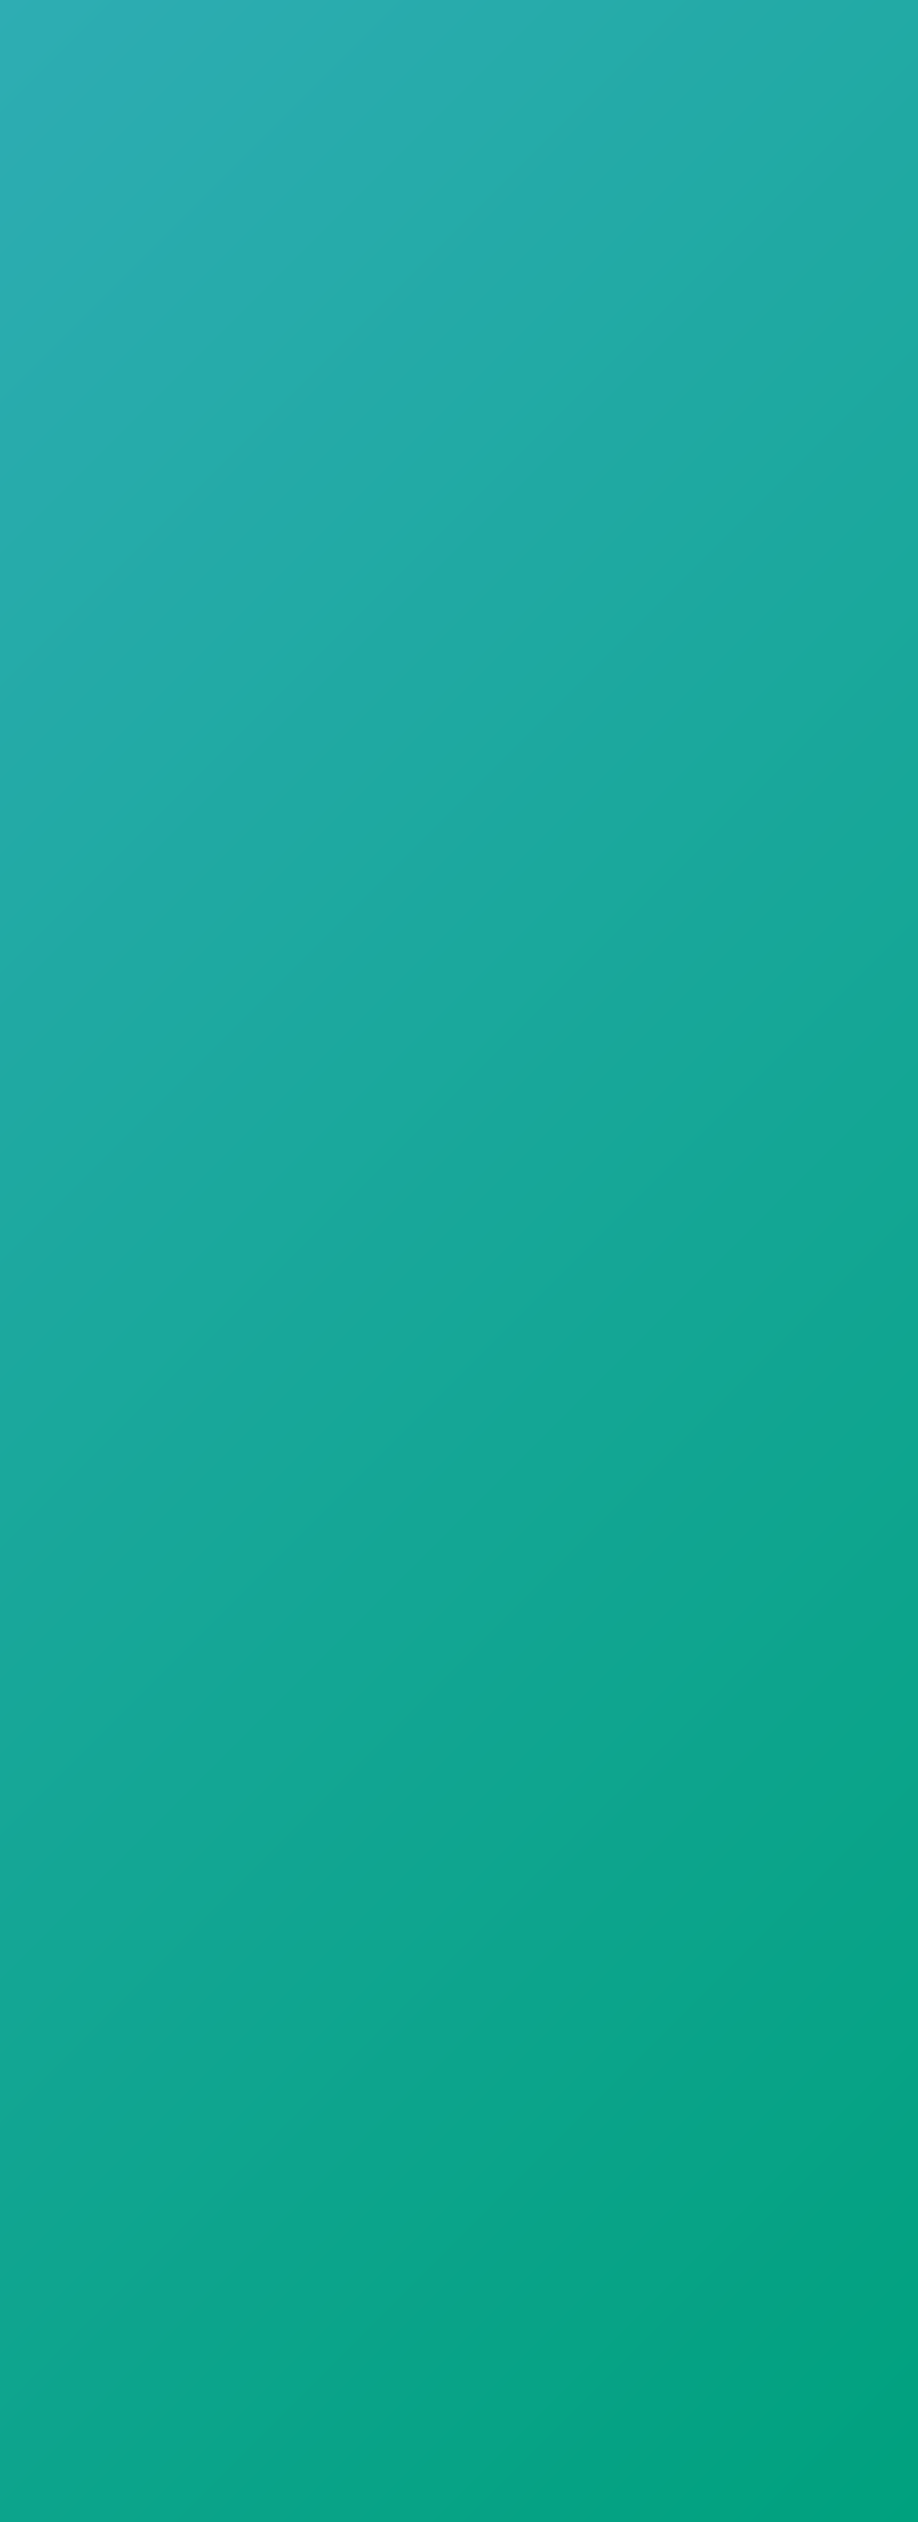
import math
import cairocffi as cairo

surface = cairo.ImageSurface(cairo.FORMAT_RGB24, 918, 2522)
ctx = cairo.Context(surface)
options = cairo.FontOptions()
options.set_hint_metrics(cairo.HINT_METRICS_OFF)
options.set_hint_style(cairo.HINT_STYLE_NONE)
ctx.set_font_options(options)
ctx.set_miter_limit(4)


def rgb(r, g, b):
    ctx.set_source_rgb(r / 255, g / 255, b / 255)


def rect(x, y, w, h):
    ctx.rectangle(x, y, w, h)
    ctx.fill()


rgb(255, 255, 255)
ctx.paint()
gradient = cairo.LinearGradient(-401, 401, 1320, 2122)
gradient.add_color_stop_rgba(0, 0.18, 0.678, 0.702, 1)
gradient.add_color_stop_rgba(1, 0, 0.631, 0.494, 1)
ctx.set_source(gradient)
rect(0, 0, 918, 2522)
surface.write_to_png('render.png')
